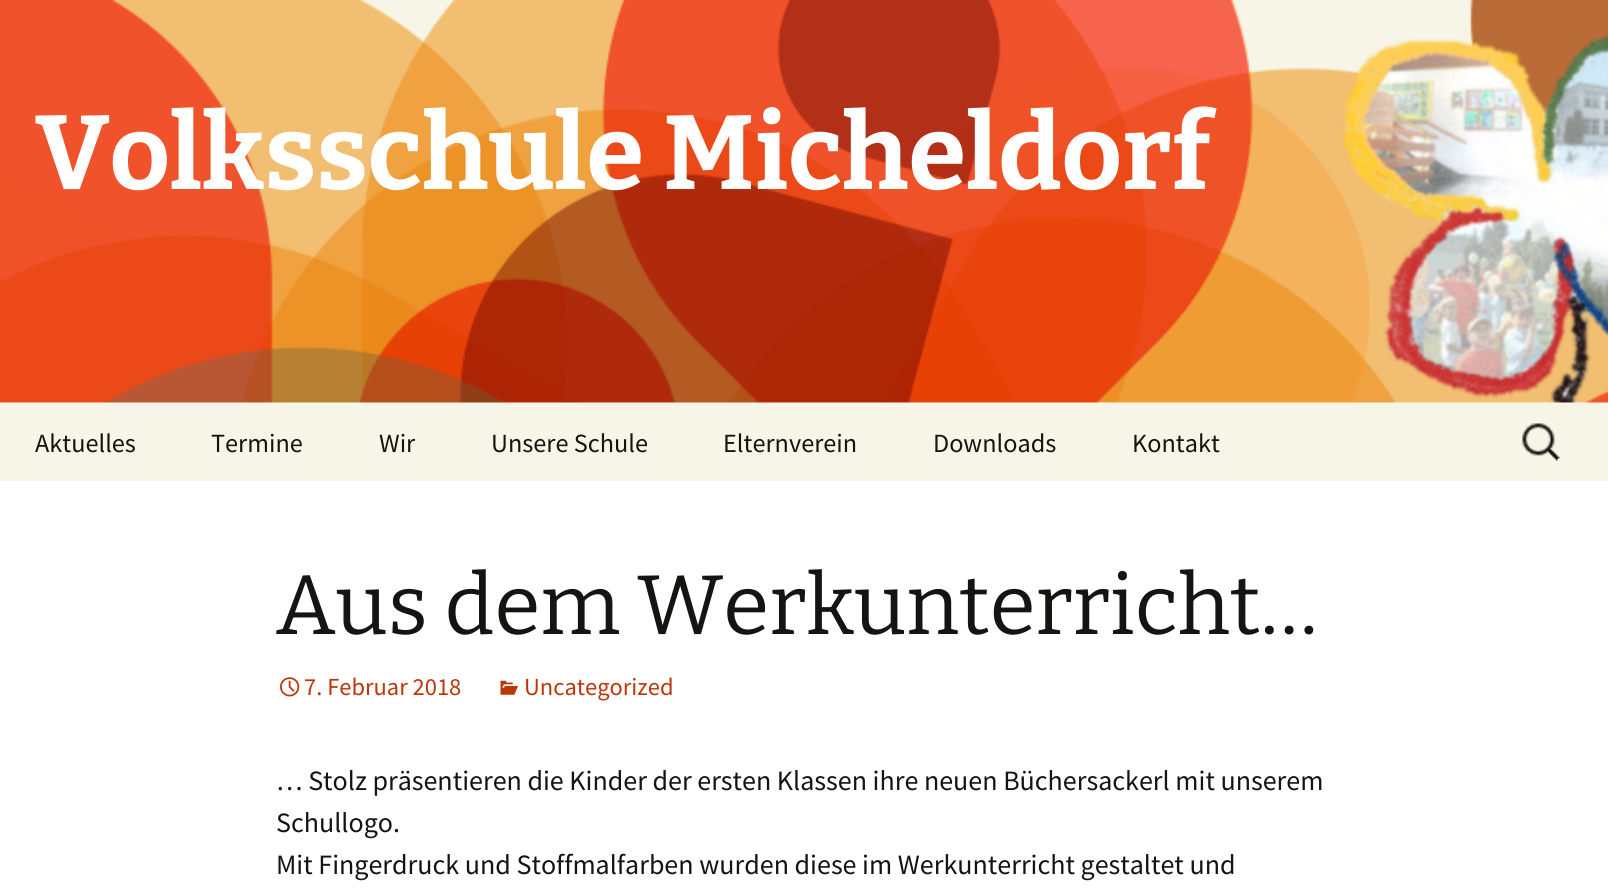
import math
import cairocffi as cairo

surface = cairo.ImageSurface(cairo.FORMAT_RGB24, 1608, 894)
ctx = cairo.Context(surface)
options = cairo.FontOptions()
options.set_hint_metrics(cairo.HINT_METRICS_OFF)
options.set_hint_style(cairo.HINT_STYLE_NONE)
ctx.set_font_options(options)
ctx.set_miter_limit(4)


def rgb(r, g, b):
    ctx.set_source_rgb(r / 255, g / 255, b / 255)


def face(family, size, italic, bold):
    ctx.select_font_face(family, cairo.FONT_SLANT_ITALIC if italic else cairo.FONT_SLANT_NORMAL, cairo.FONT_WEIGHT_BOLD if bold else cairo.FONT_WEIGHT_NORMAL)
    ctx.set_font_size(size)


def label(x, y, s):
    ctx.move_to(x, y)
    ctx.show_text(s)


def rect(x, y, w, h):
    ctx.rectangle(x, y, w, h)
    ctx.fill()


def image(path, x, y, w, h):
    ctx.save()
    ctx.set_source_surface(cairo.ImageSurface.create_from_png(path), x, y)
    ctx.rectangle(x, y, w, h)
    ctx.fill()
    ctx.restore()


rgb(255, 255, 255)
ctx.paint()
image('image0.png', 0, 0, 1608, 403)
face('Bitter Thin', 105, 0, 0)
rgb(255, 255, 255)
label(35, 189, 'Volksschule Micheldorf')
rgb(247, 245, 231)
rect(0, 403, 1608, 78)
face('Source Sans Pro', 26.25, 0, 0)
rgb(20, 20, 18)
label(35, 452, 'Aktuelles')
label(211, 452, 'Termine')
label(379, 452, 'Wir')
label(491, 452, 'Unsere Schule')
label(723, 452, 'Elternverein')
label(933, 452, 'Downloads')
label(1132, 452, 'Kontakt')
image('image1.png', 1522, 423, 38, 38)
face('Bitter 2 Thin', 84, 0, 0)
label(276, 634, 'Aus dem Werkunterricht…')
image('image2.png', 280, 677, 20, 20)
face('Source Sans Pro', 24.5, 0, 0)
rgb(188, 54, 10)
label(304, 695, '7. Februar 2018')
image('image3.png', 500, 680, 18, 15)
label(524, 695, 'Uncategorized')
face('Source Sans Pro', 28, 0, 0)
rgb(20, 20, 18)
label(276, 790, '… Stolz präsentieren die Kinder der ersten Klassen ihre neuen Büchersackerl mit unserem')
label(276, 832, 'Schullogo.')
label(276, 874, 'Mit Fingerdruck und Stoffmalfarben wurden diese im Werkunterricht gestaltet und')
surface.write_to_png('render.png')
